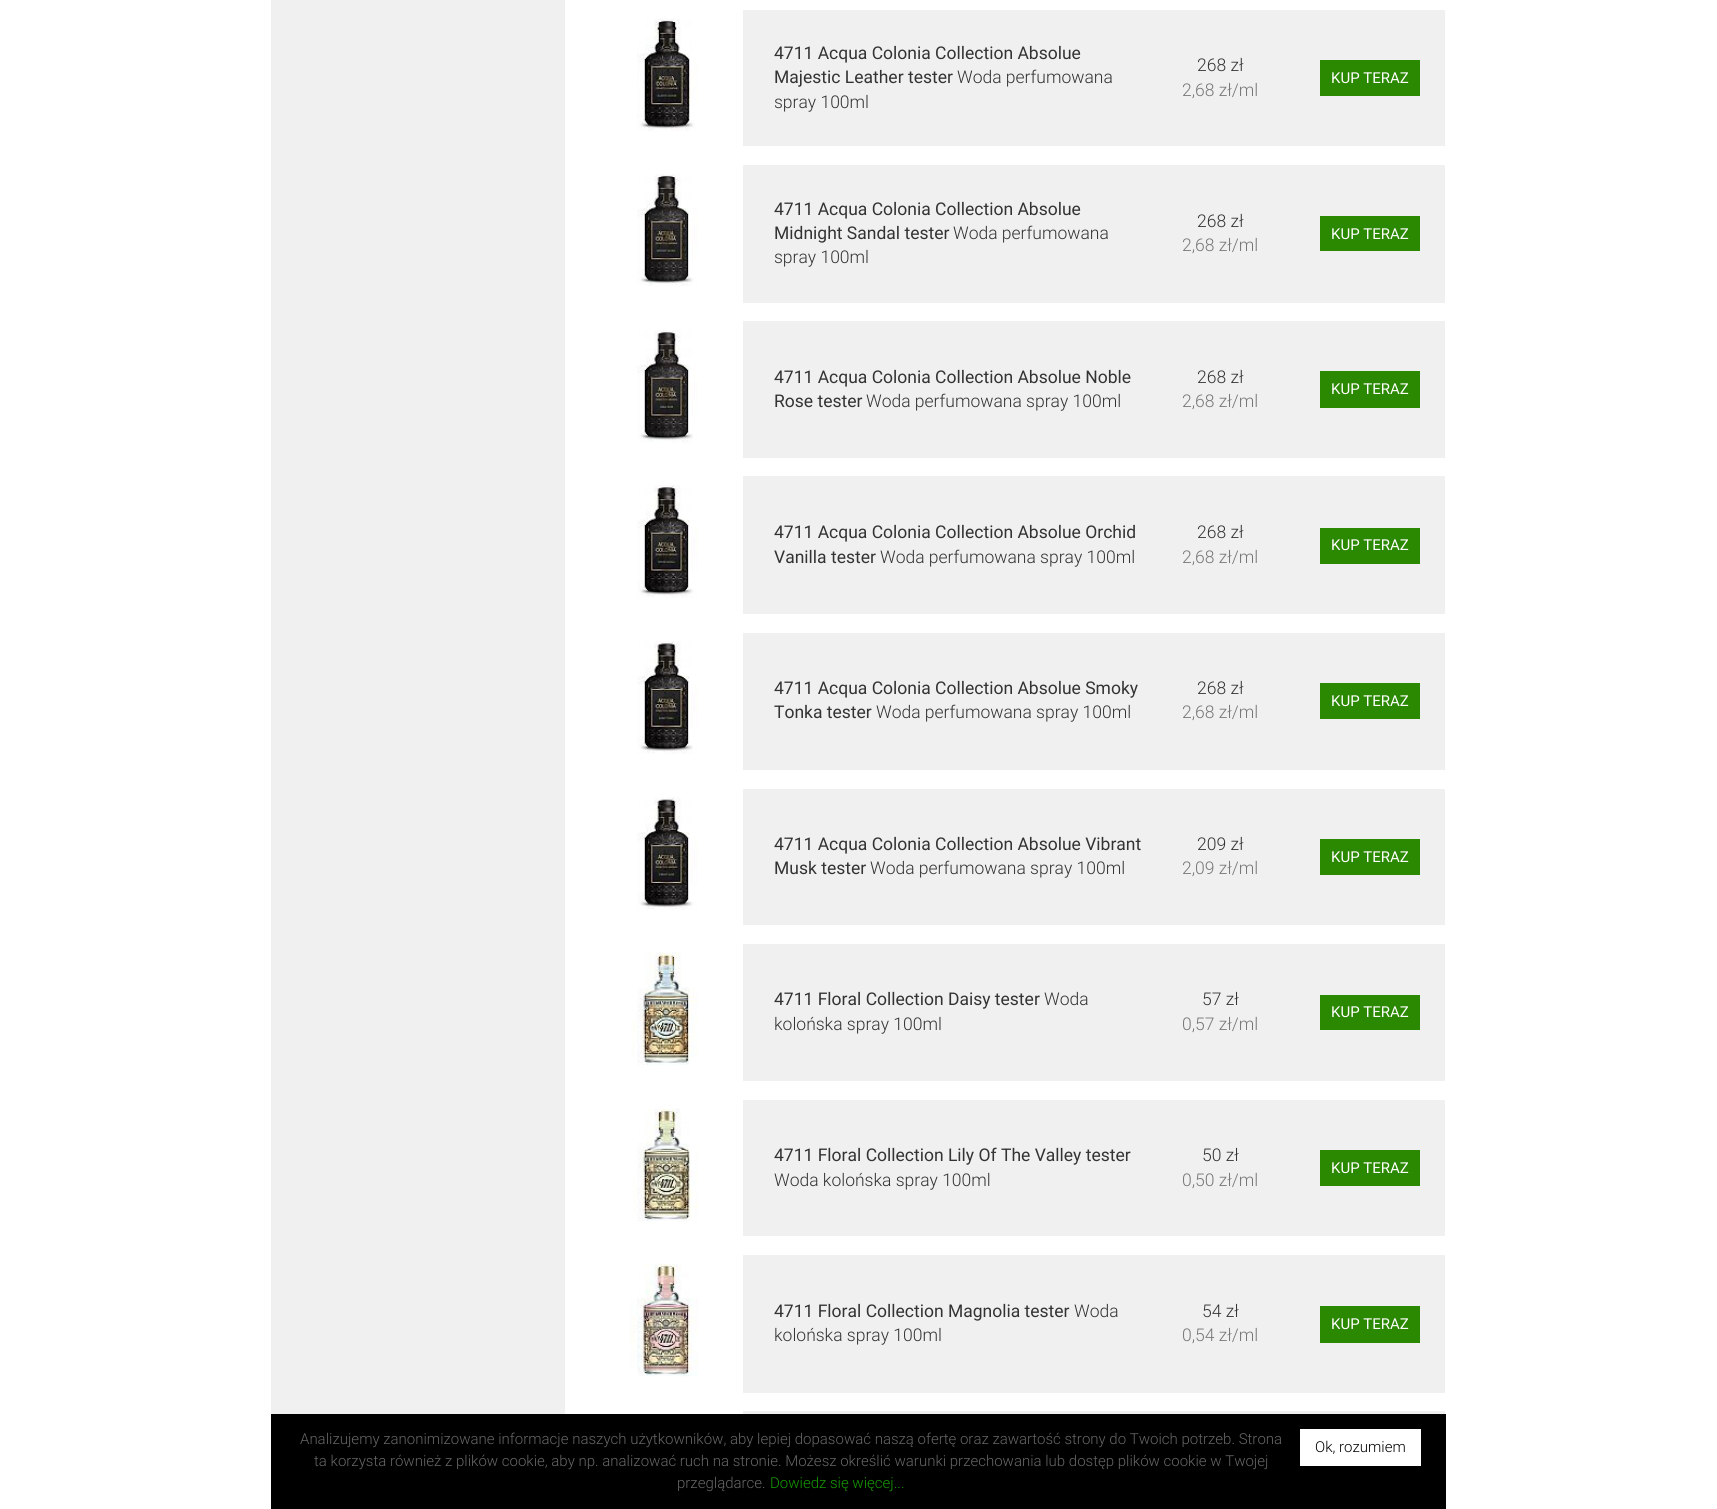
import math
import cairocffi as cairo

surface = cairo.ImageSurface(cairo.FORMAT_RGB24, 1717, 1509)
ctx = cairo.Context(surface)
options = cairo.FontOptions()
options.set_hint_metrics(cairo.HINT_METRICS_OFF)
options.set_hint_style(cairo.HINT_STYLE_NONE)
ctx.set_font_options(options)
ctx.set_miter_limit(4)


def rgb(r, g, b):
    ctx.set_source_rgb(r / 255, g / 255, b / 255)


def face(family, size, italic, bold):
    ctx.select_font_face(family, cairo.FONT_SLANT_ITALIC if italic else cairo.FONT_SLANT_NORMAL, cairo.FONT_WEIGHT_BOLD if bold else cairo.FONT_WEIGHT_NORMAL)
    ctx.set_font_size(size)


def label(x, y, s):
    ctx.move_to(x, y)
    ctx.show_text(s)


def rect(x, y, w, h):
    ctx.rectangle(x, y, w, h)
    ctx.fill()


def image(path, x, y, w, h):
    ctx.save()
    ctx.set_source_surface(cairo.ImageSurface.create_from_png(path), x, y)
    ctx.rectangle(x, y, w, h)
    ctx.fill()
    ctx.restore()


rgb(255, 255, 255)
ctx.paint()
rgb(240, 240, 240)
rect(271, 0, 294, 1414)
rect(743, 10, 702, 136)
image('image0.png', 637, 18, 61, 113)
face('Roboto', 17.5, 0, 0)
rgb(51, 51, 51)
label(774, 59, '4711 Acqua Colonia Collection Absolue')
label(774, 83, 'Majestic Leather tester')
face('Roboto Light', 17.5, 0, 0)
label(957, 83, 'Woda perfumowana')
label(774, 108, 'spray 100ml')
label(1197, 71, '268 zł')
rgb(119, 119, 119)
label(1182, 96, '2,68 zł/ml')
rgb(42, 136, 1)
rect(1320, 60, 100, 36)
face('Roboto', 15, 0, 0)
rgb(255, 255, 255)
label(1331, 83, 'KUP TERAZ')
rgb(240, 240, 240)
rect(743, 165, 702, 138)
image('image1.png', 637, 174, 61, 112)
face('Roboto', 17.5, 0, 0)
rgb(51, 51, 51)
label(774, 215, '4711 Acqua Colonia Collection Absolue')
label(774, 239, 'Midnight Sandal tester')
face('Roboto Light', 17.5, 0, 0)
label(953, 239, 'Woda perfumowana')
label(774, 263, 'spray 100ml')
label(1197, 227, '268 zł')
rgb(119, 119, 119)
label(1182, 251, '2,68 zł/ml')
rgb(42, 136, 1)
rect(1320, 216, 100, 35)
face('Roboto', 15, 0, 0)
rgb(255, 255, 255)
label(1331, 239, 'KUP TERAZ')
rgb(240, 240, 240)
rect(743, 321, 702, 137)
image('image2.png', 637, 330, 61, 113)
face('Roboto', 17.5, 0, 0)
rgb(51, 51, 51)
label(774, 383, '4711 Acqua Colonia Collection Absolue Noble')
label(774, 407, 'Rose tester')
face('Roboto Light', 17.5, 0, 0)
label(866, 407, 'Woda perfumowana spray 100ml')
label(1197, 383, '268 zł')
rgb(119, 119, 119)
label(1182, 407, '2,68 zł/ml')
rgb(42, 136, 1)
rect(1320, 371, 100, 37)
face('Roboto', 15, 0, 0)
rgb(255, 255, 255)
label(1331, 394, 'KUP TERAZ')
rgb(240, 240, 240)
rect(743, 476, 702, 138)
image('image3.png', 637, 485, 61, 113)
face('Roboto', 17.5, 0, 0)
rgb(51, 51, 51)
label(774, 538, '4711 Acqua Colonia Collection Absolue Orchid')
label(774, 563, 'Vanilla tester')
face('Roboto Light', 17.5, 0, 0)
label(880, 563, 'Woda perfumowana spray 100ml')
label(1197, 538, '268 zł')
rgb(119, 119, 119)
label(1182, 563, '2,68 zł/ml')
rgb(42, 136, 1)
rect(1320, 528, 100, 36)
face('Roboto', 15, 0, 0)
rgb(255, 255, 255)
label(1331, 550, 'KUP TERAZ')
rgb(240, 240, 240)
rect(743, 633, 702, 137)
image('image4.png', 637, 641, 61, 113)
face('Roboto', 17.5, 0, 0)
rgb(51, 51, 51)
label(774, 694, '4711 Acqua Colonia Collection Absolue Smoky')
label(774, 718, 'Tonka tester')
face('Roboto Light', 17.5, 0, 0)
label(876, 718, 'Woda perfumowana spray 100ml')
label(1197, 694, '268 zł')
rgb(119, 119, 119)
label(1182, 718, '2,68 zł/ml')
rgb(42, 136, 1)
rect(1320, 683, 100, 36)
face('Roboto', 15, 0, 0)
rgb(255, 255, 255)
label(1331, 706, 'KUP TERAZ')
rgb(240, 240, 240)
rect(743, 789, 702, 136)
image('image5.png', 637, 797, 61, 113)
face('Roboto', 17.5, 0, 0)
rgb(51, 51, 51)
label(774, 850, '4711 Acqua Colonia Collection Absolue Vibrant')
label(774, 874, 'Musk tester')
face('Roboto Light', 17.5, 0, 0)
label(870, 874, 'Woda perfumowana spray 100ml')
label(1197, 850, '209 zł')
rgb(119, 119, 119)
label(1182, 874, '2,09 zł/ml')
rgb(42, 136, 1)
rect(1320, 839, 100, 36)
face('Roboto', 15, 0, 0)
rgb(255, 255, 255)
label(1331, 862, 'KUP TERAZ')
rgb(240, 240, 240)
rect(743, 944, 702, 137)
image('image6.png', 631, 952, 67, 113)
face('Roboto', 17.5, 0, 0)
rgb(51, 51, 51)
label(774, 1005, '4711 Floral Collection Daisy tester')
face('Roboto Light', 17.5, 0, 0)
label(1044, 1005, 'Woda')
label(774, 1030, 'kolońska spray 100ml')
label(1202, 1005, '57 zł')
rgb(119, 119, 119)
label(1182, 1030, '0,57 zł/ml')
rgb(42, 136, 1)
rect(1320, 995, 100, 35)
face('Roboto', 15, 0, 0)
rgb(255, 255, 255)
label(1331, 1017, 'KUP TERAZ')
rgb(240, 240, 240)
rect(743, 1100, 702, 136)
image('image7.png', 633, 1108, 65, 114)
face('Roboto', 17.5, 0, 0)
rgb(51, 51, 51)
label(774, 1161, '4711 Floral Collection Lily Of The Valley tester')
face('Roboto Light', 17.5, 0, 0)
label(774, 1186, 'Woda kolońska spray 100ml')
label(1202, 1161, '50 zł')
rgb(119, 119, 119)
label(1182, 1186, '0,50 zł/ml')
rgb(42, 136, 1)
rect(1320, 1150, 100, 36)
face('Roboto', 15, 0, 0)
rgb(255, 255, 255)
label(1331, 1173, 'KUP TERAZ')
rgb(240, 240, 240)
rect(743, 1255, 702, 138)
image('image8.png', 630, 1263, 68, 114)
face('Roboto', 17.5, 0, 0)
rgb(51, 51, 51)
label(774, 1317, '4711 Floral Collection Magnolia tester')
face('Roboto Light', 17.5, 0, 0)
label(1074, 1317, 'Woda')
label(774, 1341, 'kolońska spray 100ml')
label(1202, 1317, '54 zł')
rgb(119, 119, 119)
label(1182, 1341, '0,54 zł/ml')
rgb(42, 136, 1)
rect(1320, 1306, 100, 37)
face('Roboto', 15, 0, 0)
rgb(255, 255, 255)
label(1331, 1329, 'KUP TERAZ')
rgb(240, 240, 240)
rect(743, 1411, 702, 3)
rgb(0, 0, 0)
rect(271, 1414, 1175, 95)
face('Roboto Light', 15, 0, 0)
rgb(102, 102, 102)
label(300, 1444, 'Analizujemy zanonimizowane informacje naszych użytkowników, aby lepiej dopasować naszą ofertę oraz zawartość strony do Twoich potrzeb. Strona')
rgb(255, 255, 255)
rect(1300, 1429, 121, 37)
rgb(0, 0, 0)
label(1315, 1452, 'Ok, rozumiem')
rgb(102, 102, 102)
label(314, 1466, 'ta korzysta również z plików cookie, aby np. analizować ruch na stronie. Możesz określić warunki przechowania lub dostęp plików cookie w Twojej')
label(677, 1488, 'przeglądarce.')
rgb(23, 154, 1)
label(770, 1488, 'Dowiedz się więcej...')
surface.write_to_png('render.png')
